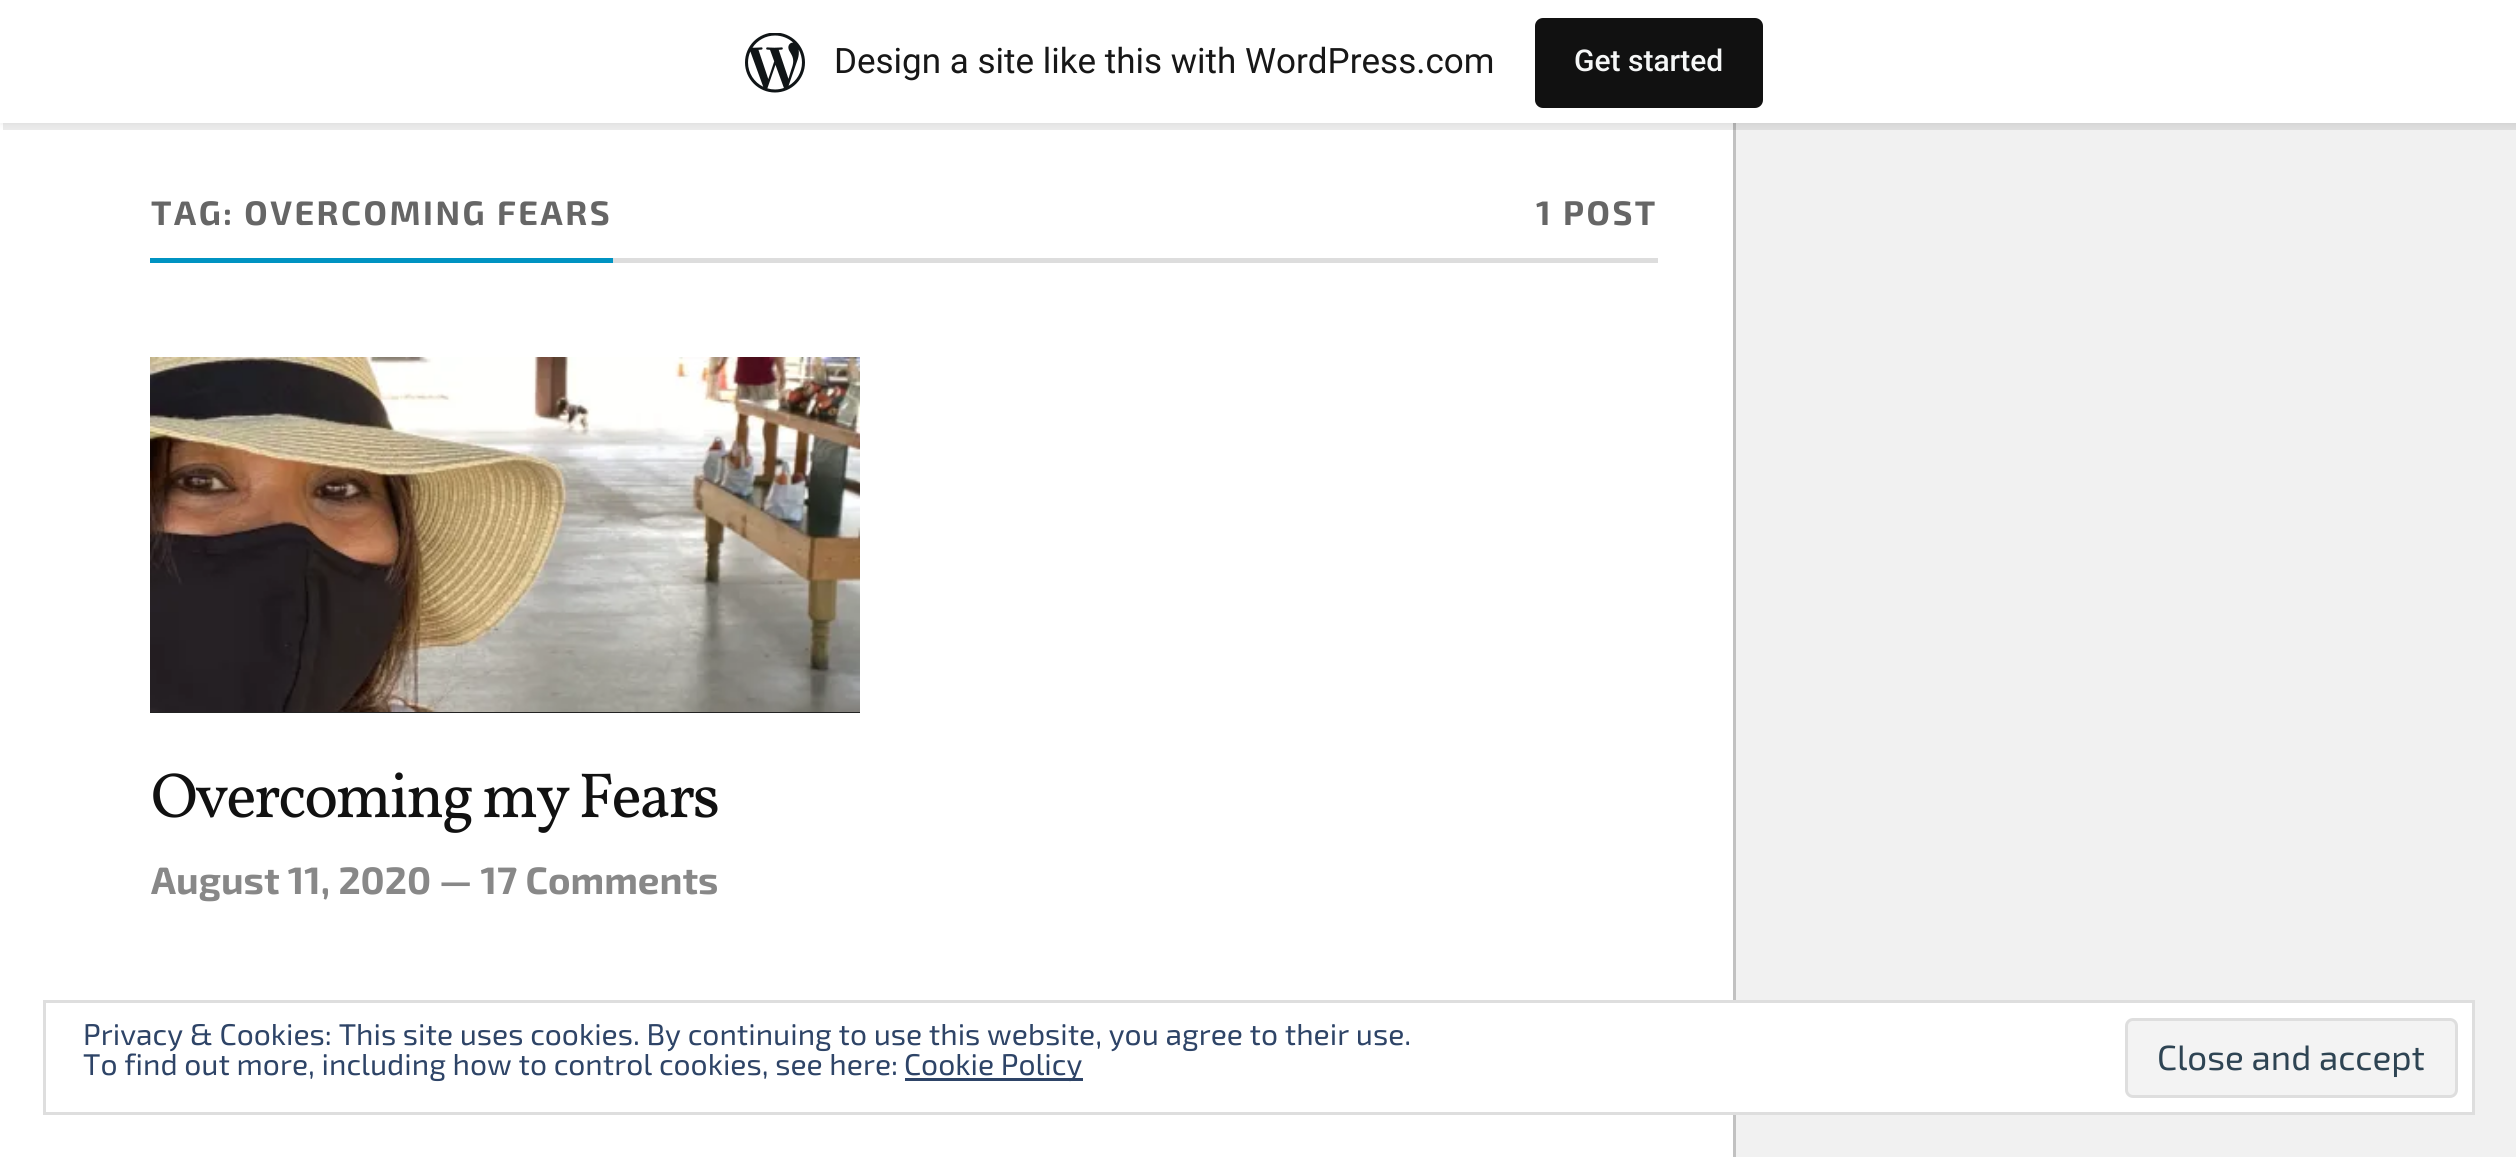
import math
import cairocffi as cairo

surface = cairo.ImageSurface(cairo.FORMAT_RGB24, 2516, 1157)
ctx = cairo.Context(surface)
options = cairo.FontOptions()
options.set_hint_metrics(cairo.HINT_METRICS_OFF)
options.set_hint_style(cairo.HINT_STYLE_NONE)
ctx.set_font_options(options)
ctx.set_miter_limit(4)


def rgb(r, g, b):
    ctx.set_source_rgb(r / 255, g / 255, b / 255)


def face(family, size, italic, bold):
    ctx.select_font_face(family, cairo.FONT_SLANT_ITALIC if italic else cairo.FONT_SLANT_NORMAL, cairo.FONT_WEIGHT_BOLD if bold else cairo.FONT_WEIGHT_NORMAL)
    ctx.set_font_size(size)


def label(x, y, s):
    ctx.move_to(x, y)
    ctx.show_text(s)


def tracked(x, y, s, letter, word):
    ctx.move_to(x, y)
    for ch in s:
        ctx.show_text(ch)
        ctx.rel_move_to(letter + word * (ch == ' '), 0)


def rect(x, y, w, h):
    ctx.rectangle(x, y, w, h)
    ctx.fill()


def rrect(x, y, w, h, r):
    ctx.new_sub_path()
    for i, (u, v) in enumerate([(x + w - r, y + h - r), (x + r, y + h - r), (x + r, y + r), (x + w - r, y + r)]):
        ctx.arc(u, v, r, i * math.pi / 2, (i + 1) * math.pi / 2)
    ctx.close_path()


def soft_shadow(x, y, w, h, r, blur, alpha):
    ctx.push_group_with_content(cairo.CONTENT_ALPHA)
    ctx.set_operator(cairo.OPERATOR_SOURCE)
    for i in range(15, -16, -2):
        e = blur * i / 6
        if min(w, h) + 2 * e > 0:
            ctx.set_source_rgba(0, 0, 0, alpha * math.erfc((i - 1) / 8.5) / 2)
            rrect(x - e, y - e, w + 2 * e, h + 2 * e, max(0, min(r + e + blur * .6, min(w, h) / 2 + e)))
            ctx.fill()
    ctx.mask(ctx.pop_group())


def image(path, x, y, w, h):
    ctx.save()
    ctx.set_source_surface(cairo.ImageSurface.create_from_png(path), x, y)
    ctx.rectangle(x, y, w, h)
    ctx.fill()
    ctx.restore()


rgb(241, 241, 241)
ctx.paint()
rgb(255, 255, 255)
rect(0, 123, 1733, 1034)
rgb(193, 193, 193)
rect(1733, 123, 3, 1034)
rgb(0, 0, 0)
soft_shadow(0, 3, 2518, 122, 0, 2.5, 0.05)
ctx.set_source_rgba(0, 0, 0, 0.08)
ctx.new_path()
ctx.move_to(3, 122)
ctx.line_to(3, 130)
ctx.line_to(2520, 130)
ctx.line_to(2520, 8)
ctx.line_to(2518, 8)
ctx.line_to(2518, 122)
ctx.close_path()
ctx.fill()
rgb(255, 255, 255)
rect(0, 0, 2516, 123)
image('image0.png', 745, 33, 60, 60)
face('Roboto', 35, 0, 0)
rgb(23, 23, 23)
label(834, 73, 'Design a site like this with WordPress.com')
rgb(17, 17, 17)
rrect(1535, 18, 228, 90, 8)
ctx.fill()
face('Roboto Medium', 30, 0, 0)
rgb(246, 247, 247)
label(1574, 71, 'Get started')
rgb(221, 221, 221)
rect(613, 258, 1045, 5)
rgb(0, 147, 194)
rect(150, 258, 463, 5)
face('Exo 2', 34, 0, 1)
rgb(102, 102, 102)
tracked(151, 225, 'TAG: OVERCOMING FEARS', 2.5, 0)
tracked(1536, 225, '1 POST', 2.5, 0)
rgb(34, 34, 34)
rect(150, 712, 710, 1)
image('image1.png', 150, 357, 710, 355)
face('Vollkorn', 63.75, 0, 0)
rgb(17, 17, 17)
tracked(151, 817, 'Overcoming my Fears', -2.5, 0)
face('Exo 2', 38.25, 0, 1)
rgb(136, 136, 136)
label(151, 894, 'August 11, 2020 — 17 Comments')
rgb(255, 255, 255)
rect(1733, 1003, 739, 109)
ctx.rectangle(44.5, 1001.5, 2429, 112)
rgb(222, 222, 222)
ctx.set_line_width(3)
ctx.stroke()
face('Exo 2', 30, 0, 0)
rgb(46, 68, 103)
label(83, 1045, 'Privacy & Cookies: This site uses cookies. By continuing to use this website, you agree to their use.')
label(83, 1075, 'To find out more, including how to control cookies, see here:')
rect(905, 1078, 178, 3)
label(904, 1075, 'Cookie Policy')
rgb(243, 243, 243)
rrect(2126.5, 1019.5, 330, 77, 6.5)
ctx.fill_preserve()
rgb(222, 222, 222)
ctx.stroke()
face('Exo 2', 35, 0, 0)
rgb(46, 68, 83)
label(2157, 1070, 'Close and accept')
surface.write_to_png('render.png')
